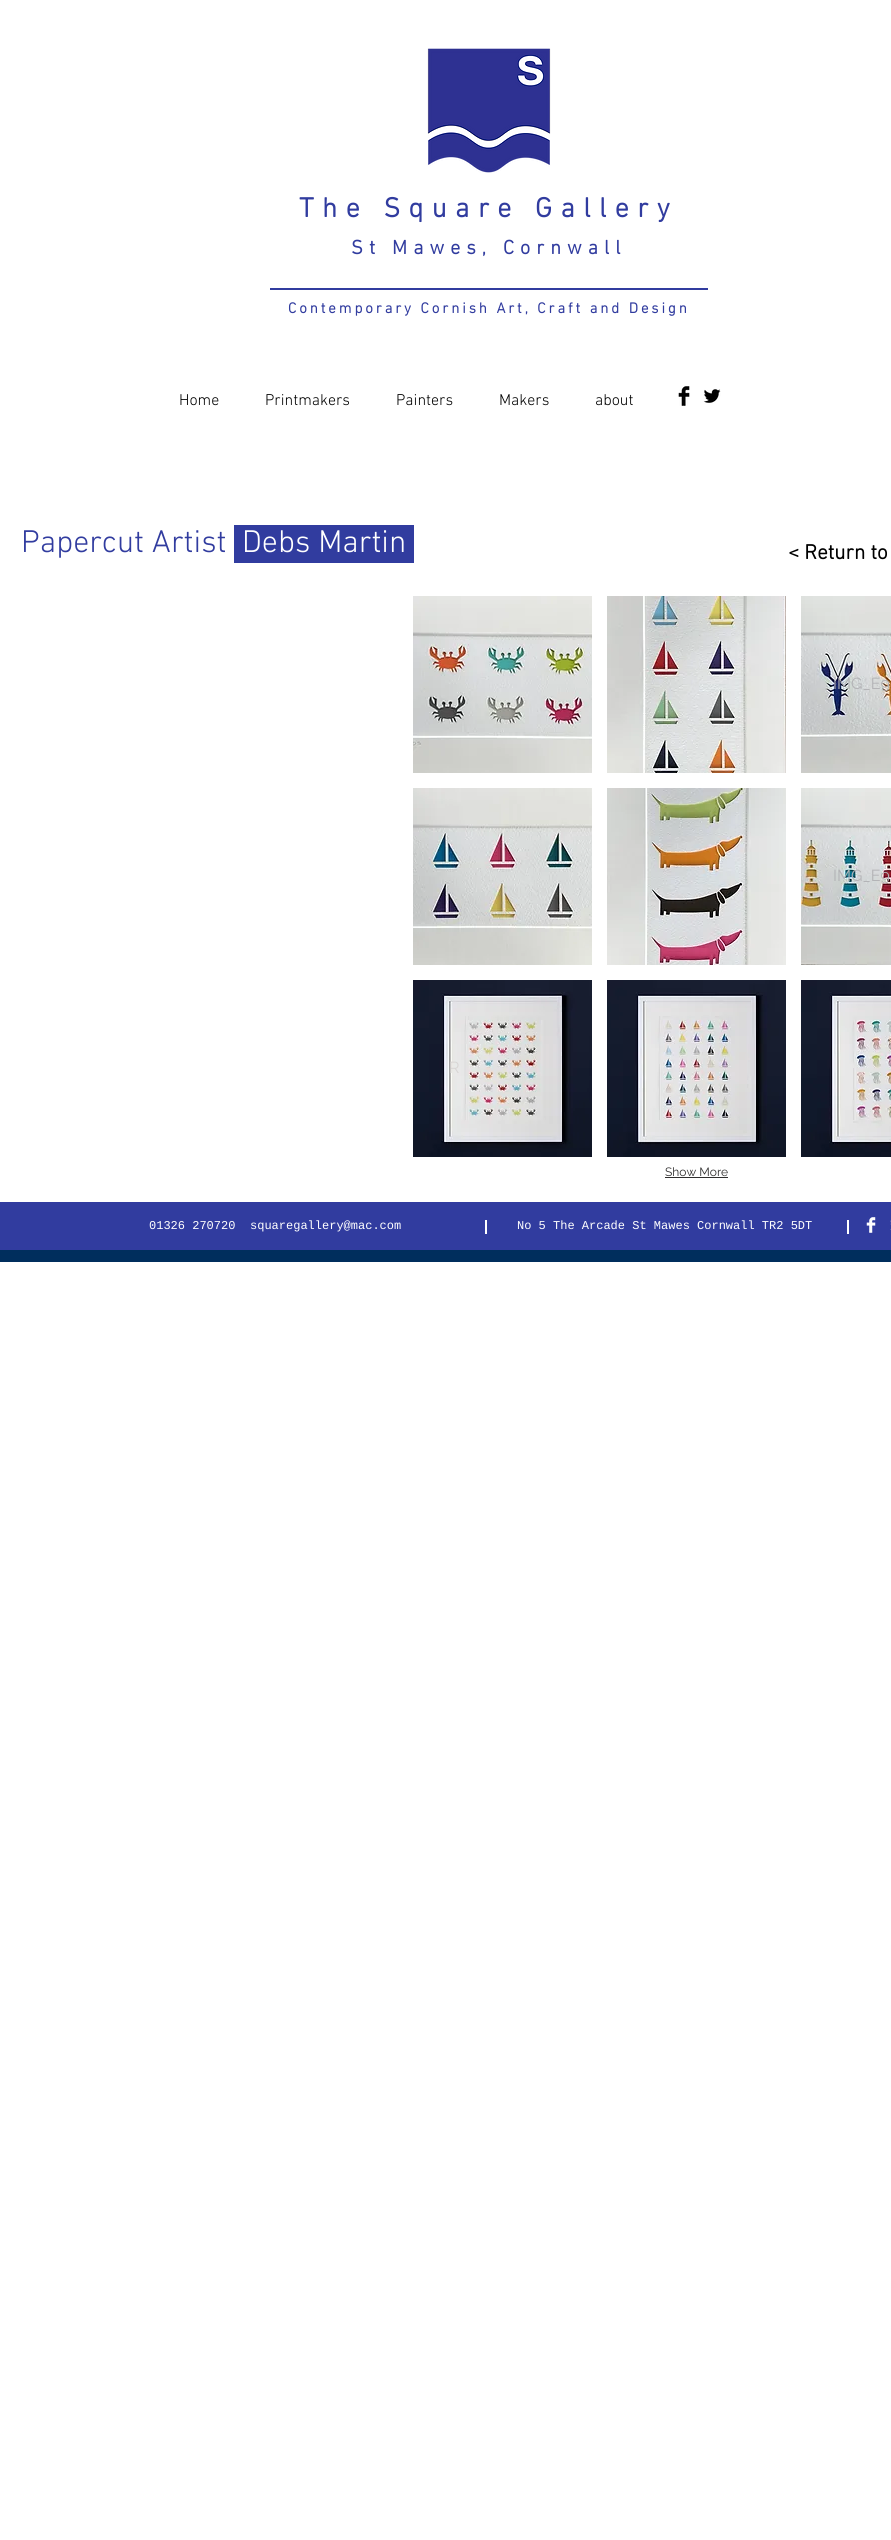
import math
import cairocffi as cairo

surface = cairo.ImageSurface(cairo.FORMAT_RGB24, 891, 2540)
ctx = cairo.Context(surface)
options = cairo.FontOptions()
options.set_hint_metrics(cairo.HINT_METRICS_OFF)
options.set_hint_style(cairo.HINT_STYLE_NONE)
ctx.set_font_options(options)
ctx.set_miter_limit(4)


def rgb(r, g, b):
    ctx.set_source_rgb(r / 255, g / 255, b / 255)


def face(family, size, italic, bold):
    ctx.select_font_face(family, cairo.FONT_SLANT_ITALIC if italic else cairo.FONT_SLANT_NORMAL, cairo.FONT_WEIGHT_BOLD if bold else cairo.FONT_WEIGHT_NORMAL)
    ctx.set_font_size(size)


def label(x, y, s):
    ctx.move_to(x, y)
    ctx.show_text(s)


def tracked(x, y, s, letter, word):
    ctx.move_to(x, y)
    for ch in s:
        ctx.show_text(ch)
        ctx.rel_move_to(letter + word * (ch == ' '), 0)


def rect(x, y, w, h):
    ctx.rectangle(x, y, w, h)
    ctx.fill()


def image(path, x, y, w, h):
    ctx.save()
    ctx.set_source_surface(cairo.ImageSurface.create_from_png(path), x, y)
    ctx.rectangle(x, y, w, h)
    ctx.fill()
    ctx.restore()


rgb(255, 255, 255)
ctx.paint()
image('image0.png', 427, 48, 124, 125)
face('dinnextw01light', 28, 0, 1)
rgb(49, 60, 159)
tracked(299, 217, 'The Square Gallery', 8.4, 0)
face('dinnextw01light', 20, 0, 1)
tracked(351, 254, 'St Mawes, Cornwall', 6, 0)
face('dinnextw01light', 15, 0, 1)
tracked(288, 313, 'Contemporary Cornish Art, Craft and Design', 2.9, 0)
rect(270, 288, 438, 2)
face('dinnextw01light Light', 16, 0, 0)
rgb(0, 0, 0)
label(179, 405, 'Home')
label(265, 405, 'Printmakers')
label(396, 405, 'Painters')
label(499, 405, 'Makers')
label(595, 405, 'about')
image('image1.png', 678, 386, 12, 20)
image('image2.png', 703, 389, 18, 14)
face('dinnextw01light Light', 32, 0, 0)
rgb(49, 60, 159)
label(21, 552, 'Papercut Artist')
rect(234, 525, 180, 38)
rgb(255, 255, 255)
label(242, 552, 'Debs Martin')
face('dinnextw01light', 21, 0, 1)
rgb(0, 0, 0)
label(788, 559, '< Return to')
image('image3.png', 413, 596, 179, 177)
image('image4.png', 607, 596, 179, 177)
image('image5.png', 801, 596, 90, 177)
face('Raleway', 16, 0, 0)
rgb(179, 179, 182)
label(833, 689, 'IMG_E9')
image('image6.png', 413, 788, 179, 177)
image('image7.png', 607, 788, 179, 177)
image('image8.png', 801, 788, 90, 177)
label(833, 881, 'IMG_E9')
image('image9.png', 413, 980, 179, 177)
rgb(216, 213, 212)
label(449, 1073, 'R')
image('image10.png', 607, 980, 179, 177)
image('image11.png', 801, 980, 90, 177)
face('Raleway', 12, 0, 0)
rgb(47, 46, 46)
label(665, 1176, 'Show More')
rect(665, 1177, 63, 1)
rgb(49, 60, 159)
rect(0, 1202, 891, 48)
rgb(0, 46, 93)
rect(0, 1250, 891, 12)
face('Liberation Mono', 12, 0, 0)
rgb(255, 255, 255)
label(149, 1229, '01326 270720')
label(250, 1229, 'squaregallery@mac.com')
rect(485, 1220, 2, 14)
label(517, 1229, 'No 5 The Arcade St Mawes Cornwall TR2 5DT')
rect(847, 1220, 2, 14)
image('image12.png', 866, 1217, 10, 16)
image('image13.png', 890, 1220, 1, 10)
surface.write_to_png('render.png')
